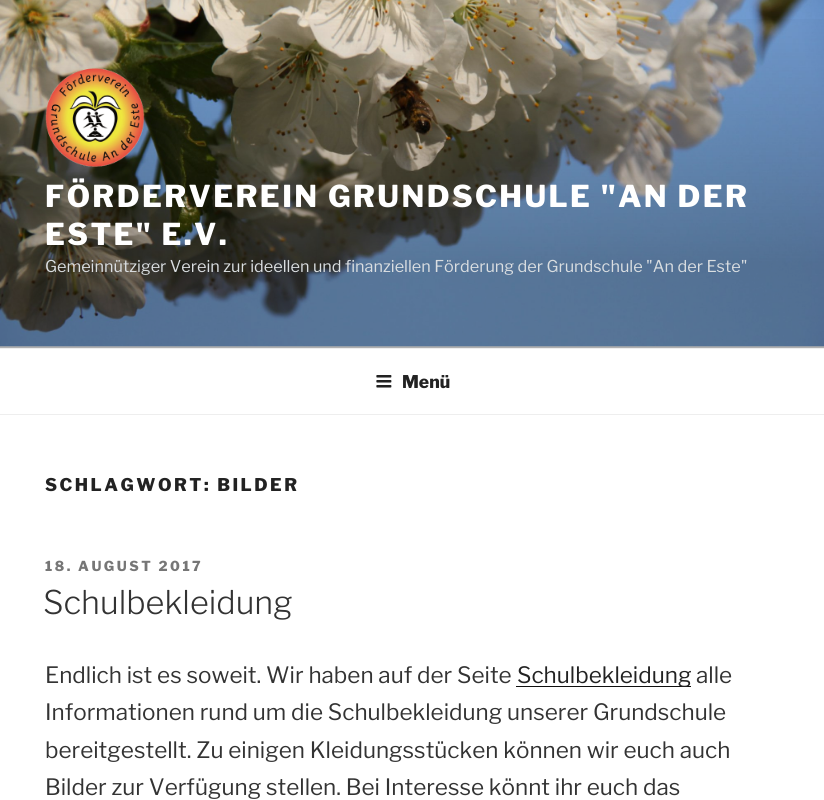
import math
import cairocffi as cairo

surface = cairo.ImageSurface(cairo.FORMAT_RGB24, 824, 800)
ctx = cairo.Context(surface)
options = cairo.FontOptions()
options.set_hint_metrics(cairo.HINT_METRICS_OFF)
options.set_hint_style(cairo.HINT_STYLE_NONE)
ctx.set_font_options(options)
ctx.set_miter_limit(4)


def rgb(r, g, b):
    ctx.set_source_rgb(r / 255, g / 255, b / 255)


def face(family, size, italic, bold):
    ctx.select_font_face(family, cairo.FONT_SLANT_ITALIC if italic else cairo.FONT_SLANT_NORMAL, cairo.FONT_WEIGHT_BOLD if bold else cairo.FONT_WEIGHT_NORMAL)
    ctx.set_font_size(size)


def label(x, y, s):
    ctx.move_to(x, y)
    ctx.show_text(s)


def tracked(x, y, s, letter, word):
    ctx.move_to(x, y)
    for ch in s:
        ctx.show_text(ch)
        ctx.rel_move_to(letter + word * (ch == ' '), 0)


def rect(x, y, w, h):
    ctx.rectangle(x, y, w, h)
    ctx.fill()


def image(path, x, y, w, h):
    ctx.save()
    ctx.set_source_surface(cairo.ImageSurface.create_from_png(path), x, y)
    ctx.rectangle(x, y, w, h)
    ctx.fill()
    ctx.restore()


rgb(255, 255, 255)
ctx.paint()
rgb(250, 250, 250)
rect(0, 346, 824, 2)
image('image0.png', 0, 0, 824, 347)
gradient = cairo.LinearGradient(413, 0, 413, 348)
gradient.add_color_stop_rgba(0, 0, 0, 0, 0)
gradient.add_color_stop_rgba(0.75, 0, 0, 0, 0.3)
gradient.add_color_stop_rgba(1, 0, 0, 0, 0.3)
ctx.set_source(gradient)
rect(0, 19, 824, 329)
image('image1.png', 45, 68, 100, 99)
face('Libre Franklin Thin', 30, 0, 0)
rgb(255, 255, 255)
tracked(45, 207, 'FÖRDERVEREIN GRUNDSCHULE "AN DER', 2.4, 0)
tracked(45, 245, 'ESTE" E.V.', 2.4, 0)
face('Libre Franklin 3 Thin', 16.25, 0, 0)
rgb(218, 222, 225)
label(45, 272, 'Gemeinnütziger Verein zur ideellen und finanziellen Förderung der Grundschule "An der Este"')
rgb(238, 238, 238)
rect(0, 348, 824, 1)
rect(0, 414, 824, 1)
image('image2.png', 376, 375, 16, 13)
face('Libre Franklin Thin', 17.5, 0, 0)
rgb(34, 34, 34)
label(402, 388, 'Menü')
tracked(45, 491, 'SCHLAGWORT: BILDER', 2.5, 0)
face('Libre Franklin Thin', 13.75, 0, 0)
rgb(118, 118, 118)
tracked(45, 571, '18. AUGUST 2017', 2.5, 0)
face('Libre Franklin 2 Thin', 32.5, 0, 0)
rgb(51, 51, 51)
label(43, 614, 'Schulbekleidung')
face('Libre Franklin 3 Thin', 22.5, 0, 0)
label(45, 683, 'Endlich ist es soweit. Wir haben auf der Seite')
rgb(15, 15, 15)
rect(516, 686, 175, 1)
rgb(34, 34, 34)
label(517, 683, 'Schulbekleidung')
rgb(51, 51, 51)
label(696, 683, 'alle')
label(45, 720, 'Informationen rund um die Schulbekleidung unserer Grundschule')
label(45, 758, 'bereitgestellt. Zu einigen Kleidungsstücken können wir euch auch')
label(45, 795, 'Bilder zur Verfügung stellen. Bei Interesse könnt ihr euch das')
surface.write_to_png('render.png')
